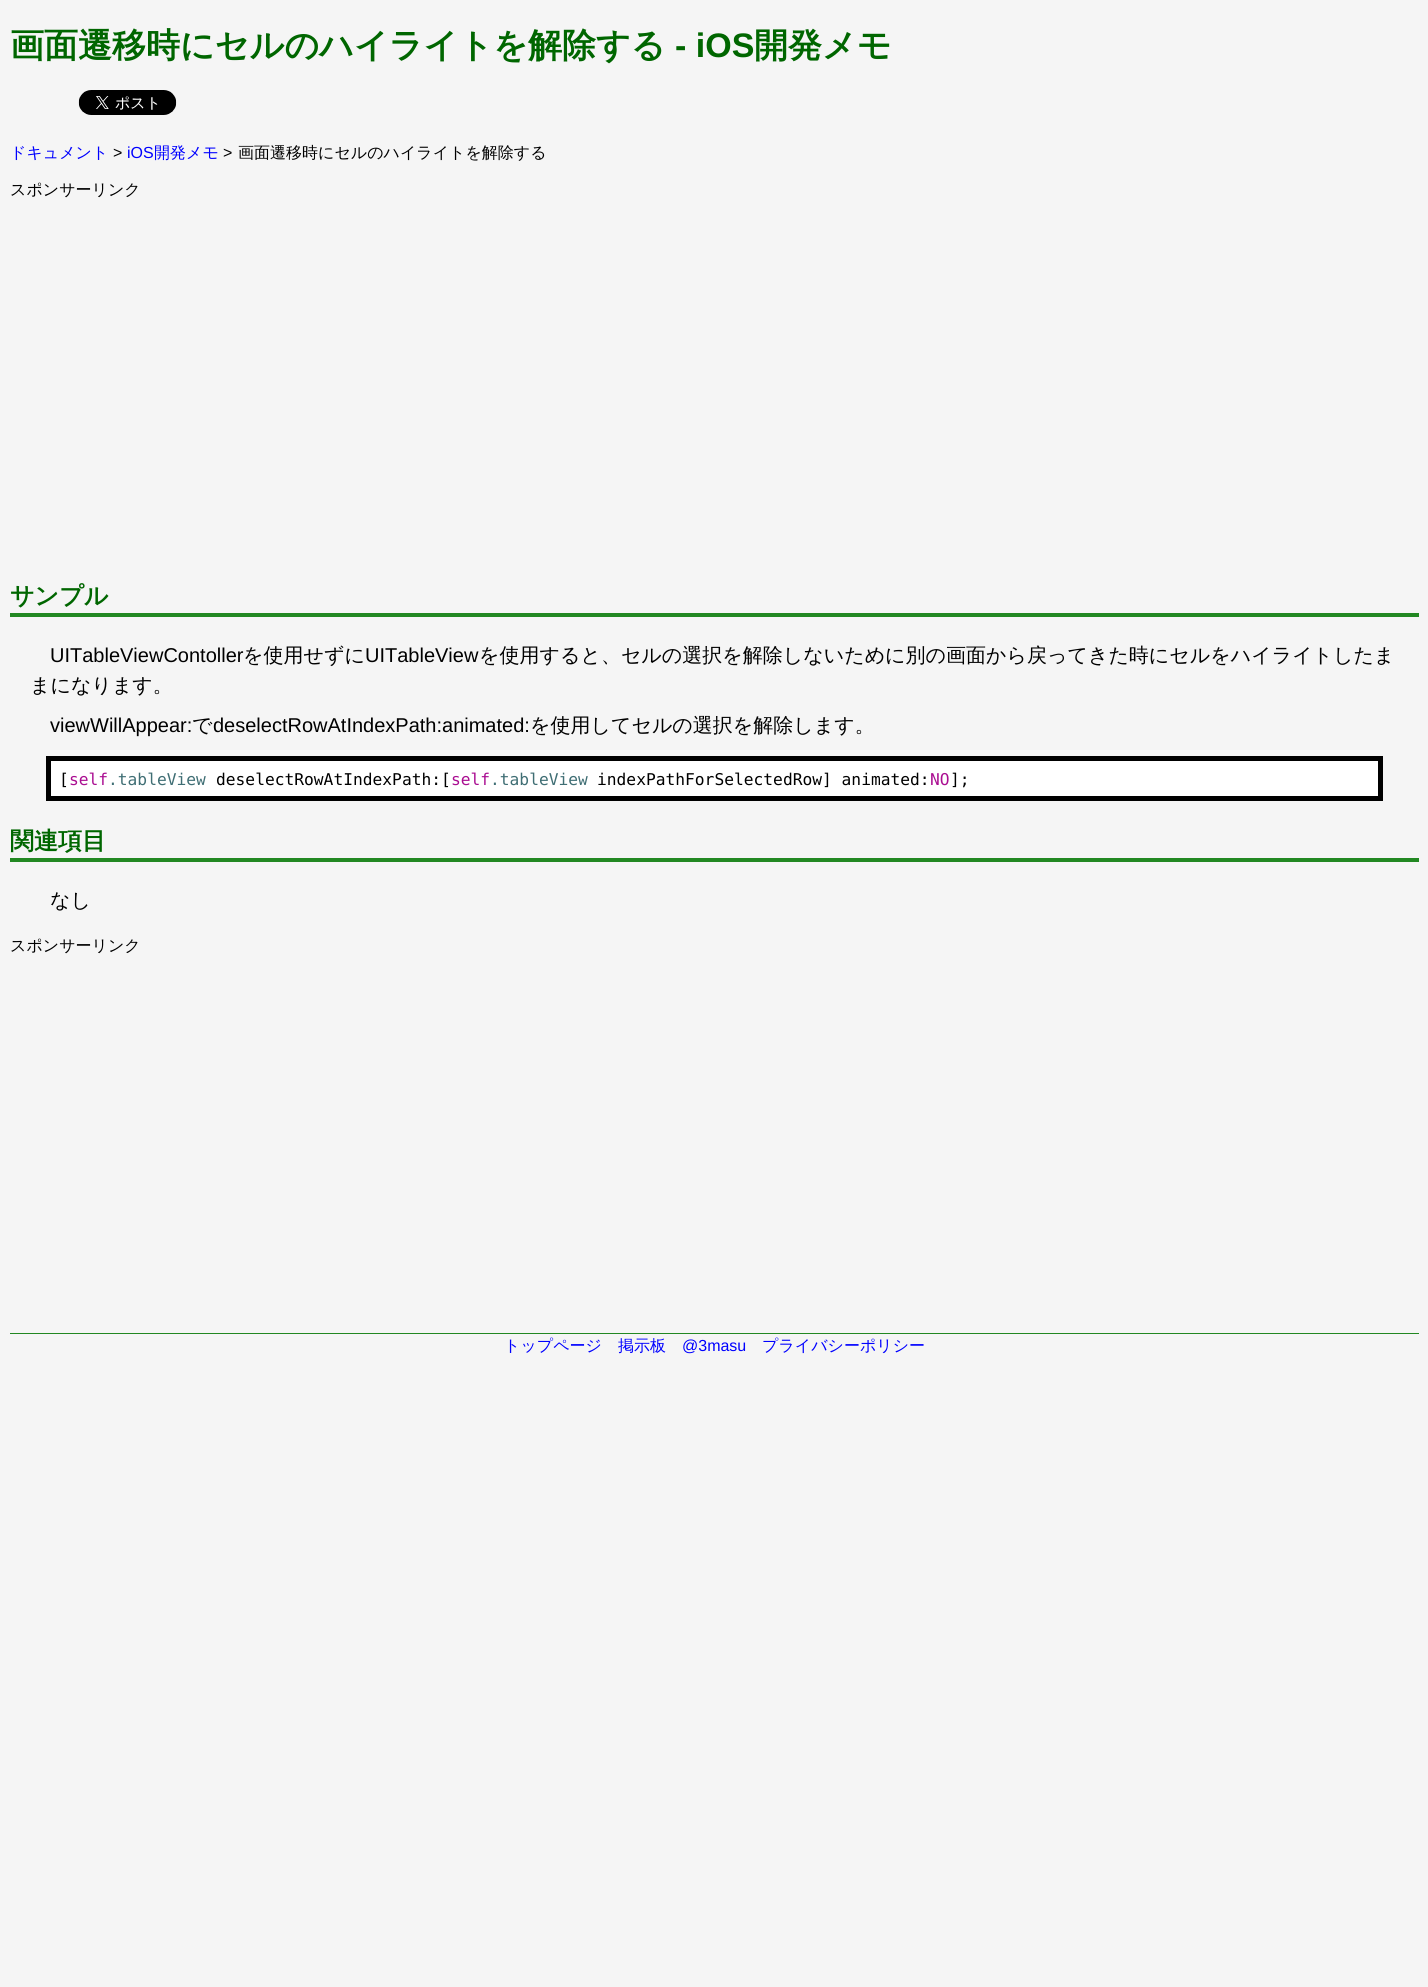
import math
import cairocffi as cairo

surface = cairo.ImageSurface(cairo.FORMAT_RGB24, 1428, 1987)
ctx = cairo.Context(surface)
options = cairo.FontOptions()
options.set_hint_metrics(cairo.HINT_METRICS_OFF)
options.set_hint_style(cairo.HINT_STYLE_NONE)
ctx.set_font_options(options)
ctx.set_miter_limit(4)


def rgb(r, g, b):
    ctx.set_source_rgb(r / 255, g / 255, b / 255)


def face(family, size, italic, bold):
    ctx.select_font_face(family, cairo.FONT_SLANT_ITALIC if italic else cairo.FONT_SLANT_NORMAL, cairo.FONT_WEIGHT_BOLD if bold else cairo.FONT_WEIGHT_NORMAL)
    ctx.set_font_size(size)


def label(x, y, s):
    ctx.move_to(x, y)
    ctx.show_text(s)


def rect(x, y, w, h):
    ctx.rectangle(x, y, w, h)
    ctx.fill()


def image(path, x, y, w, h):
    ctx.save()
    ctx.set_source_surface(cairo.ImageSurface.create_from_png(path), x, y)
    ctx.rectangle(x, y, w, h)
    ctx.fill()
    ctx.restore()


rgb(245, 245, 245)
ctx.paint()
face('WenQuanYi Zen Hei', 34, 0, 1)
rgb(0, 102, 0)
label(10, 57, '画面遷移時にセルのハイライトを解除する')
face('Liberation Sans', 34, 0, 1)
label(675, 57, '- iOS')
face('WenQuanYi Zen Hei', 34, 0, 1)
label(754, 57, '開発メモ')
image('image0.png', 78, 90, 99, 25)
face('WenQuanYi Zen Hei Medium', 16, 0, 0)
rgb(0, 0, 255)
label(10, 158, 'ドキュメント')
face('Liberation Sans', 16, 0, 0)
rgb(0, 0, 0)
label(113, 158, '>')
rgb(0, 0, 255)
label(127, 158, 'iOS')
face('WenQuanYi Zen Hei Medium', 16, 0, 0)
label(154, 158, '開発メモ')
face('Liberation Sans', 16, 0, 0)
rgb(0, 0, 0)
label(223, 158, '>')
face('WenQuanYi Zen Hei Medium', 16, 0, 0)
label(238, 158, '画面遷移時にセルのハイライトを解除する')
label(10, 195, 'スポンサーリンク')
rgb(34, 136, 34)
rect(10, 613, 1409, 4)
face('WenQuanYi Zen Hei', 24, 0, 1)
rgb(0, 102, 0)
label(10, 604, 'サンプル')
face('Liberation Sans', 20, 0, 0)
rgb(0, 0, 0)
label(50, 662, 'UITableViewContoller')
face('WenQuanYi Zen Hei Medium', 20, 0, 0)
label(243, 662, 'を使用せずに')
face('Liberation Sans', 20, 0, 0)
label(365, 662, 'UITableView')
face('WenQuanYi Zen Hei Medium', 20, 0, 0)
label(479, 662, 'を使用すると、セルの選択を解除しないために別の画面から戻ってきた時にセルをハイライトしたま')
label(30, 692, 'まになります。')
face('Liberation Sans', 20, 0, 0)
label(50, 732, 'viewWillAppear:')
face('WenQuanYi Zen Hei Medium', 20, 0, 0)
label(192, 732, 'で')
face('Liberation Sans', 20, 0, 0)
label(213, 732, 'deselectRowAtIndexPath:animated:')
face('WenQuanYi Zen Hei Medium', 20, 0, 0)
label(530, 732, 'を使用してセルの選択を解除します。')
rect(46, 756, 1337, 45)
rgb(255, 255, 255)
rect(51, 761, 1327, 35)
face('DejaVu Sans Mono', 16.25, 0, 0)
rgb(0, 0, 0)
label(59, 785, '[')
rgb(170, 13, 145)
label(69, 785, 'self')
rgb(63, 110, 116)
label(108, 785, '.tableView')
rgb(0, 0, 0)
label(216, 785, 'deselectRowAtIndexPath:[')
rgb(170, 13, 145)
label(451, 785, 'self')
rgb(63, 110, 116)
label(490, 785, '.tableView')
rgb(0, 0, 0)
label(597, 785, 'indexPathForSelectedRow] animated:')
rgb(170, 13, 145)
label(930, 785, 'NO')
rgb(0, 0, 0)
label(950, 785, '];')
rgb(34, 136, 34)
rect(10, 858, 1409, 4)
face('WenQuanYi Zen Hei', 24, 0, 1)
rgb(0, 102, 0)
label(10, 849, '関連項目')
face('WenQuanYi Zen Hei Medium', 20, 0, 0)
rgb(0, 0, 0)
label(50, 907, 'なし')
face('WenQuanYi Zen Hei Medium', 16, 0, 0)
label(10, 951, 'スポンサーリンク')
rgb(34, 136, 34)
rect(10, 1333, 1409, 1)
rgb(0, 0, 255)
label(504, 1351, 'トップページ')
label(618, 1351, '掲示板')
face('Liberation Sans', 16, 0, 0)
label(682, 1351, '@3masu')
face('WenQuanYi Zen Hei Medium', 16, 0, 0)
label(762, 1351, 'プライバシーポリシー')
surface.write_to_png('render.png')
